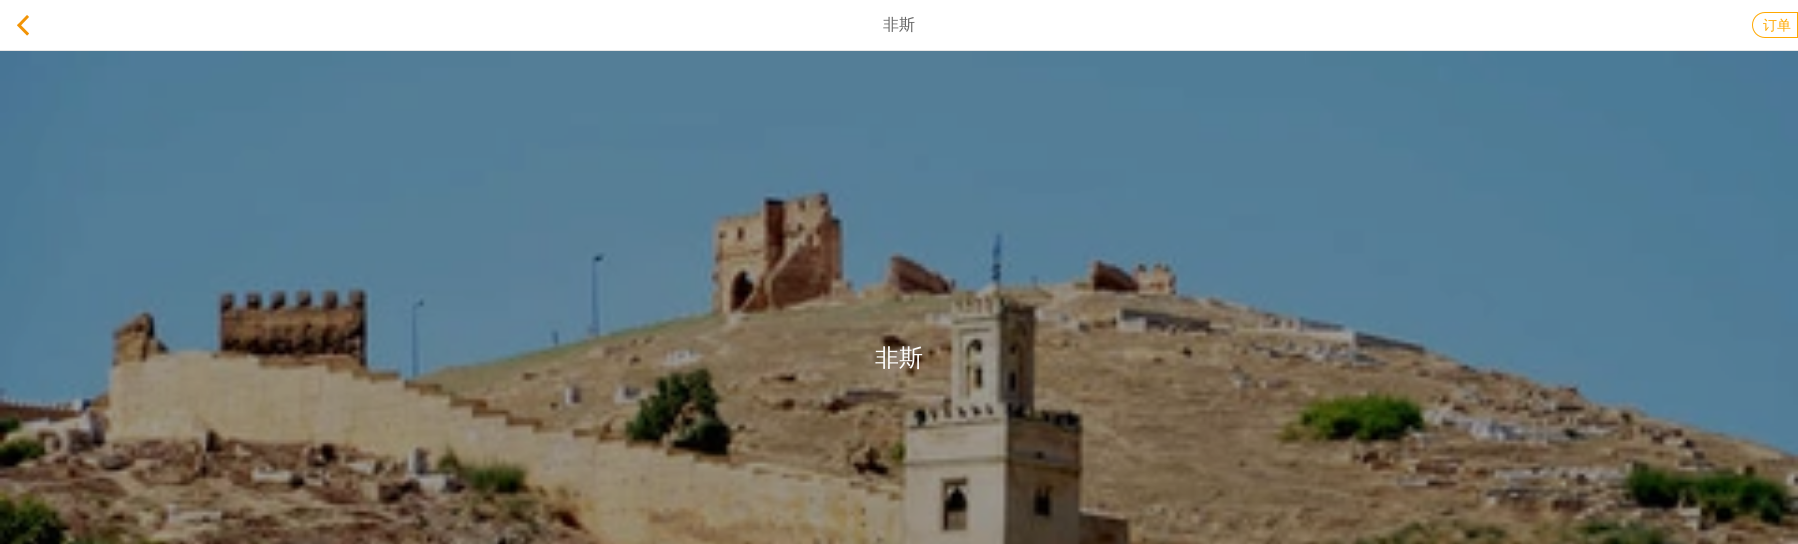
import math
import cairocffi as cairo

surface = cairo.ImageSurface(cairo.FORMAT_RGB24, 1798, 544)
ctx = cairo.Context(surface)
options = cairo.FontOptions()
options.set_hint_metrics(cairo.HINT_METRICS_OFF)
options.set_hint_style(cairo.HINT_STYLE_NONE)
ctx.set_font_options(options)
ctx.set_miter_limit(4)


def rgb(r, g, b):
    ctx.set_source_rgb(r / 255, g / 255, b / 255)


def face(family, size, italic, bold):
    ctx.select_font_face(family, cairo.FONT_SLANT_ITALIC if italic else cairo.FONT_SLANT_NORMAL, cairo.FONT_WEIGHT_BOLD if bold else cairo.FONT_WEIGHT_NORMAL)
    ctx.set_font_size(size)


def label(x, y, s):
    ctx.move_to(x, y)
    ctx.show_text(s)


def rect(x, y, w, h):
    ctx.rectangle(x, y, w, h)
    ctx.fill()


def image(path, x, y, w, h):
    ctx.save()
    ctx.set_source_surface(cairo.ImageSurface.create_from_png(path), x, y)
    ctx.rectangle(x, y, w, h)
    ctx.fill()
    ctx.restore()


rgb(255, 255, 255)
ctx.paint()
rgb(229, 229, 229)
rect(0, 50, 1798, 1)
image('image0.png', 17, 15, 12, 21)
face('WenQuanYi Zen Hei Medium', 16, 0, 0)
rgb(102, 102, 102)
label(883, 30, '非斯')
ctx.new_path()
ctx.move_to(1765, 12.5)
ctx.line_to(1797.5, 12.5)
ctx.line_to(1797.5, 37.5)
ctx.line_to(1765, 37.5)
ctx.curve_to(1758, 37.5, 1752.5, 32, 1752.5, 25)
ctx.curve_to(1752.5, 18, 1758, 12.5, 1765, 12.5)
ctx.close_path()
rgb(255, 168, 0)
ctx.set_line_width(1)
ctx.stroke()
face('WenQuanYi Zen Hei Medium', 14, 0, 0)
label(1763, 30, '订单')
image('image1.png', 0, 51, 1798, 493)
face('WenQuanYi Zen Hei Medium', 24, 0, 0)
rgb(255, 255, 255)
label(875, 366, '非斯')
surface.write_to_png('render.png')
